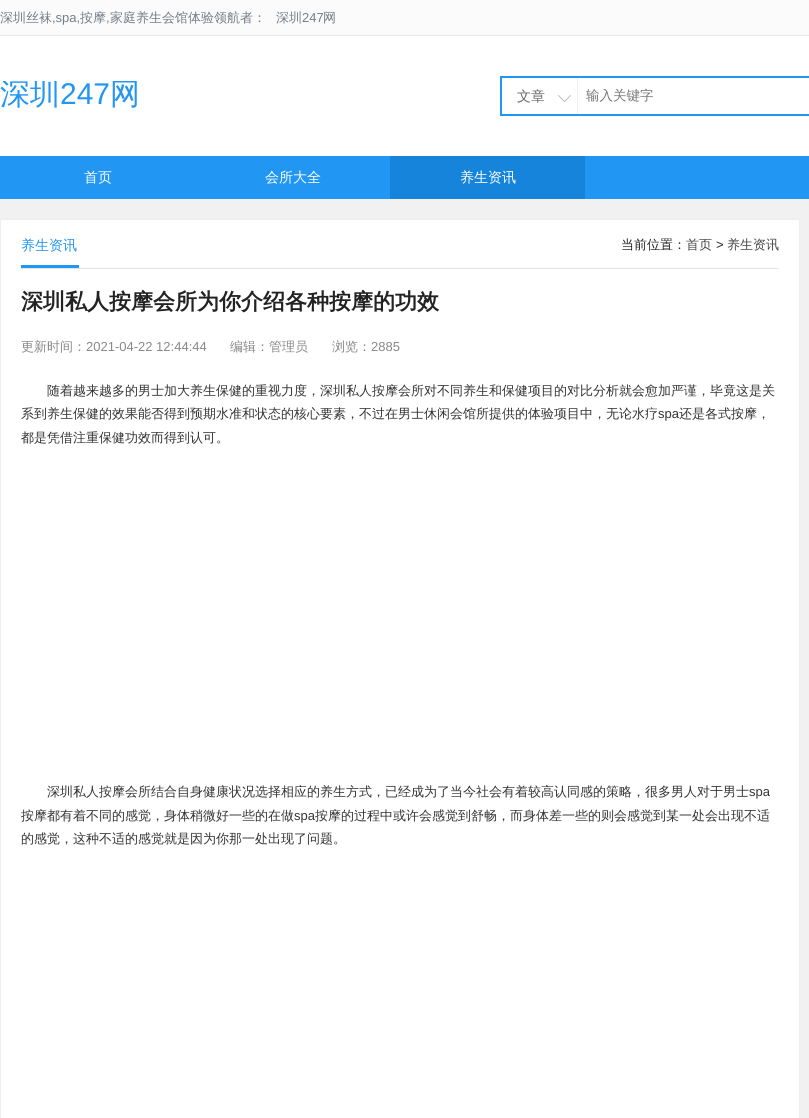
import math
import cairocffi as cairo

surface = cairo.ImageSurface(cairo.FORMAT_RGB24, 809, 1118)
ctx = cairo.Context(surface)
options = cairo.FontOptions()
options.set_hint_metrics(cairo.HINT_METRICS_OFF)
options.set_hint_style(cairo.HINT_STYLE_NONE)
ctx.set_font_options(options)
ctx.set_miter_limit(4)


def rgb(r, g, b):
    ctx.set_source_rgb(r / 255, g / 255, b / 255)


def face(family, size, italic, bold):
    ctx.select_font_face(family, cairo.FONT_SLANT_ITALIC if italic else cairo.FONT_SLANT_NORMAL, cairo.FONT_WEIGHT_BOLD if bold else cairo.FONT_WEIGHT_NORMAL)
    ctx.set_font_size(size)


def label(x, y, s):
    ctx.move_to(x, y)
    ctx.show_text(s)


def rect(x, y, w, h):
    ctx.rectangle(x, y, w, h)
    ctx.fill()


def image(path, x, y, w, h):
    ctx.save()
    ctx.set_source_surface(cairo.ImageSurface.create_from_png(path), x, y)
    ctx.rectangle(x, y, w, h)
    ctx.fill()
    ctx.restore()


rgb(241, 241, 241)
ctx.paint()
rgb(251, 251, 251)
rect(0, 0, 809, 35)
rgb(232, 232, 232)
rect(0, 35, 809, 1)
face('WenQuanYi Zen Hei Medium', 13, 0, 0)
rgb(116, 125, 135)
label(0, 22, '深圳丝袜')
face('Liberation Sans', 13, 0, 0)
label(52, 22, ',spa,')
face('WenQuanYi Zen Hei Medium', 13, 0, 0)
label(80, 22, '按摩 家庭养生会馆体验领航者：')
label(276, 22, '深圳')
face('Liberation Sans', 13, 0, 0)
label(302, 22, '247')
face('WenQuanYi Zen Hei Medium', 13, 0, 0)
label(323, 22, '网')
face('Liberation Sans', 13, 0, 0)
label(106, 22, ',')
rgb(255, 255, 255)
rect(0, 36, 809, 120)
ctx.save()
ctx.rectangle(0, 81, 370, 35)
ctx.clip()
face('WenQuanYi Zen Hei Medium', 30, 0, 0)
rgb(33, 150, 243)
label(0, 104, '深圳')
ctx.restore()
face('Liberation Sans', 30, 0, 0)
rgb(33, 150, 243)
label(60, 104, '247')
ctx.save()
ctx.rectangle(0, 81, 370, 35)
ctx.clip()
face('WenQuanYi Zen Hei Medium', 30, 0, 0)
label(110, 104, '网')
ctx.restore()
rect(500, 76, 309, 2)
rect(500, 114, 309, 2)
rect(500, 76, 2, 40)
rgb(238, 238, 238)
rect(577, 78, 1, 36)
image('image0.png', 558, 95, 13, 7)
face('WenQuanYi Zen Hei Medium', 14, 0, 0)
rgb(102, 102, 102)
label(517, 101, '文章')
face('WenQuanYi Zen Hei Medium', 13.5, 0, 0)
rgb(117, 117, 117)
label(586, 100, '输入关键字')
rgb(33, 150, 243)
rect(0, 156, 809, 43)
face('WenQuanYi Zen Hei Medium', 14, 0, 0)
rgb(255, 255, 255)
label(84, 182, '首页')
label(265, 182, '会所大全')
rgb(23, 132, 219)
rect(390, 156, 195, 43)
rgb(255, 255, 255)
label(460, 182, '养生资讯')
ctx.rectangle(0.5, 219.5, 799, 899)
ctx.fill_preserve()
rgb(238, 238, 238)
ctx.set_line_width(1)
ctx.stroke()
rgb(228, 227, 227)
rect(21, 268, 758, 1)
rgb(33, 150, 243)
rect(21, 265, 58, 3)
label(21, 250, '养生资讯')
face('WenQuanYi Zen Hei Medium', 13, 0, 0)
rgb(35, 35, 35)
label(621, 249, '当前位置：')
rgb(69, 69, 69)
label(686, 249, '首页')
face('Liberation Sans', 13, 0, 0)
rgb(35, 35, 35)
label(716, 249, '>')
face('WenQuanYi Zen Hei Medium', 13, 0, 0)
rgb(69, 69, 69)
label(727, 249, '养生资讯')
face('WenQuanYi Zen Hei', 22, 0, 1)
rgb(35, 35, 35)
label(21, 309, '深圳私人按摩会所为你介绍各种按摩的功效')
face('WenQuanYi Zen Hei Medium', 13, 0, 0)
rgb(136, 136, 136)
label(21, 351, '更新时间：')
face('Liberation Sans', 13, 0, 0)
label(86, 351, '2021-04-22 12:44:44')
face('WenQuanYi Zen Hei Medium', 13, 0, 0)
label(230, 351, '编辑：管理员')
label(332, 351, '浏览：')
face('Liberation Sans', 13, 0, 0)
label(371, 351, '2885')
face('WenQuanYi Zen Hei Medium', 13, 0, 0)
rgb(51, 51, 51)
label(47, 395, '随着越来越多的男士加大养生保健的重视力度，深圳私人按摩会所对不同养生和保健项目的对比分析就会愈加严谨，毕竟这是关')
label(21, 418, '系到养生保健的效果能否得到预期水准和状态的核心要素，不过在男士休闲会馆所提供的体验项目中，无论水疗')
face('Liberation Sans', 13, 0, 0)
label(658, 418, 'spa')
face('WenQuanYi Zen Hei Medium', 13, 0, 0)
label(679, 418, '还是各式按摩，')
label(21, 442, '都是凭借注重保健功效而得到认可。')
label(47, 796, '深圳私人按摩会所结合自身健康状况选择相应的养生方式，已经成为了当今社会有着较高认同感的策略，很多男人对于男士')
face('Liberation Sans', 13, 0, 0)
label(749, 796, 'spa')
face('WenQuanYi Zen Hei Medium', 13, 0, 0)
label(21, 820, '按摩都有着不同的感觉，身体稍微好一些的在做')
face('Liberation Sans', 13, 0, 0)
label(294, 820, 'spa')
face('WenQuanYi Zen Hei Medium', 13, 0, 0)
label(315, 820, '按摩的过程中或许会感觉到舒畅，而身体差一些的则会感觉到某一处会出现不适')
label(21, 843, '的感觉，这种不适的感觉就是因为你那一处出现了问题。')
surface.write_to_png('render.png')
